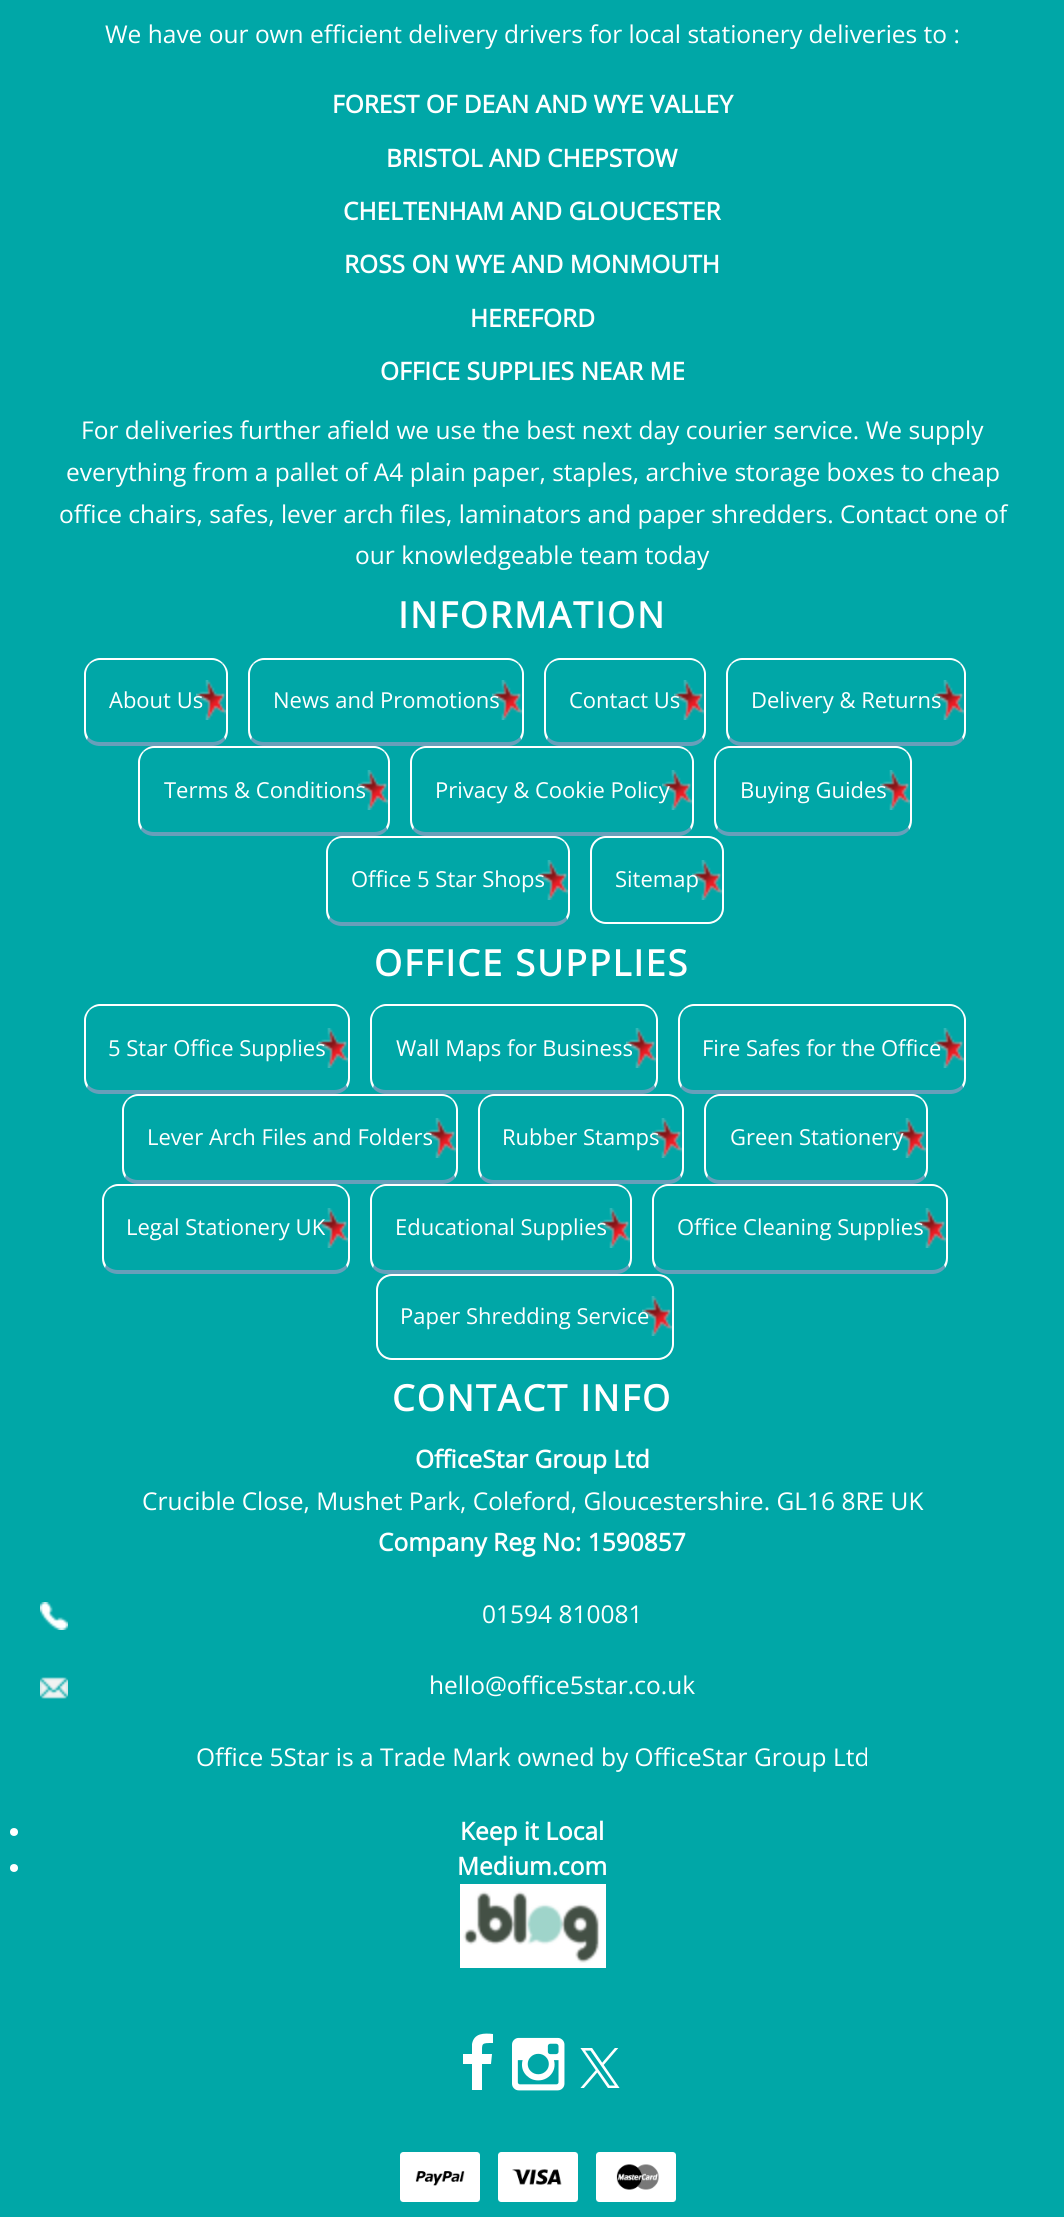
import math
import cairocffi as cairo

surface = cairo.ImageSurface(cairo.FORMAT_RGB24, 1064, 2217)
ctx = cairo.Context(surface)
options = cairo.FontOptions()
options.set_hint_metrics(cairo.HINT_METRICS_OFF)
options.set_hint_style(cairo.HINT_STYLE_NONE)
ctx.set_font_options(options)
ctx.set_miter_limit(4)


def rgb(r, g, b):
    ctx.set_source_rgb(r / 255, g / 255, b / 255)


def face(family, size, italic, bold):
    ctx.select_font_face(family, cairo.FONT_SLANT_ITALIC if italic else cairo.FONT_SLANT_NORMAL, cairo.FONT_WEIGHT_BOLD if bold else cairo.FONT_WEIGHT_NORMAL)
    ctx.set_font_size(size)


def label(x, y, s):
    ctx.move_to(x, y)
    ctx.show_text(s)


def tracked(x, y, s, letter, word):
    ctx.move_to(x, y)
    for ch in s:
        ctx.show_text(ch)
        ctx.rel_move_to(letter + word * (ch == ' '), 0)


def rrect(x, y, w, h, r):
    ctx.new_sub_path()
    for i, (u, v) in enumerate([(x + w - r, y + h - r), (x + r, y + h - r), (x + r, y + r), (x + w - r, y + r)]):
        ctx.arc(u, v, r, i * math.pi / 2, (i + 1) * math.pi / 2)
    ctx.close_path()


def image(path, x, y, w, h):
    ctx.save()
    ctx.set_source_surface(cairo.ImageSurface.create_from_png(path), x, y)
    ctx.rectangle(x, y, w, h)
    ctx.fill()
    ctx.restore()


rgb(0, 167, 167)
ctx.paint()
face('Open Sans', 24.5, 0, 0)
rgb(255, 255, 255)
label(105, 43, 'We have our own efficient delivery drivers for local stationery deliveries to :')
face('Open Sans', 24.5, 0, 1)
label(332, 113, 'FOREST OF DEAN AND WYE VALLEY')
label(386, 167, 'BRISTOL AND CHEPSTOW')
label(343, 220, 'CHELTENHAM AND GLOUCESTER')
label(344, 273, 'ROSS ON WYE AND MONMOUTH')
label(470, 327, 'HEREFORD')
label(380, 380, 'OFFICE SUPPLIES NEAR ME')
face('Open Sans', 24.5, 0, 0)
label(81, 439, 'For deliveries further afield we use the best next day courier service. We supply')
label(66, 481, 'everything from a pallet of A4 plain paper, staples, archive storage boxes to cheap')
label(59, 523, 'office chairs, safes, lever arch files, laminators and paper shredders. Contact one of')
label(355, 564, 'our knowledgeable team today')
face('Open Sans', 36, 0, 1)
tracked(398, 628, 'INFORMATION', 2, 0)
image('image0.png', 196, 680, 30, 40)
ctx.new_path()
ctx.move_to(100, 658)
ctx.curve_to(96, 658, 92, 660, 89, 663)
ctx.line_to(90, 664)
ctx.curve_to(92, 662, 96, 660, 100, 660)
ctx.line_to(212, 660)
ctx.curve_to(216, 660, 220, 662, 222, 664)
ctx.line_to(223, 663)
ctx.curve_to(220, 660, 216, 658, 212, 658)
ctx.close_path()
ctx.fill()
ctx.new_path()
ctx.move_to(228, 730)
ctx.line_to(228, 674)
ctx.curve_to(228, 670, 226, 666, 223, 663)
ctx.line_to(222, 664)
ctx.curve_to(224, 666, 226, 670, 226, 674)
ctx.line_to(226, 730)
ctx.curve_to(226, 733, 225, 735, 224, 737)
ctx.line_to(225, 740)
ctx.curve_to(227, 737, 228, 734, 228, 730)
ctx.close_path()
ctx.fill()
rgb(104, 159, 186)
ctx.new_path()
ctx.move_to(100, 746)
ctx.line_to(212, 746)
ctx.curve_to(217, 746, 222, 744, 225, 740)
ctx.line_to(224, 737)
ctx.curve_to(221, 740, 217, 742, 212, 742)
ctx.line_to(100, 742)
ctx.curve_to(95, 742, 91, 740, 88, 737)
ctx.line_to(87, 740)
ctx.curve_to(90, 744, 95, 746, 100, 746)
ctx.close_path()
ctx.fill()
rgb(255, 255, 255)
ctx.new_path()
ctx.move_to(84, 674)
ctx.line_to(84, 730)
ctx.curve_to(84, 734, 85, 737, 87, 740)
ctx.line_to(88, 737)
ctx.curve_to(87, 735, 86, 733, 86, 730)
ctx.line_to(86, 674)
ctx.curve_to(86, 670, 88, 666, 90, 664)
ctx.line_to(89, 663)
ctx.curve_to(86, 666, 84, 670, 84, 674)
ctx.close_path()
ctx.fill()
face('Open Sans', 22, 0, 0)
label(109, 708, 'About Us')
image('image0.png', 492, 680, 30, 40)
ctx.new_path()
ctx.move_to(264, 658)
ctx.curve_to(260, 658, 256, 660, 253, 663)
ctx.line_to(254, 664)
ctx.curve_to(256, 662, 260, 660, 264, 660)
ctx.line_to(508, 660)
ctx.curve_to(512, 660, 516, 662, 518, 664)
ctx.line_to(519, 663)
ctx.curve_to(516, 660, 512, 658, 508, 658)
ctx.close_path()
ctx.fill()
ctx.new_path()
ctx.move_to(524, 730)
ctx.line_to(524, 674)
ctx.curve_to(524, 670, 522, 666, 519, 663)
ctx.line_to(518, 664)
ctx.curve_to(520, 666, 522, 670, 522, 674)
ctx.line_to(522, 730)
ctx.curve_to(522, 733, 521, 735, 520, 737)
ctx.line_to(521, 740)
ctx.curve_to(523, 737, 524, 734, 524, 730)
ctx.close_path()
ctx.fill()
rgb(104, 159, 186)
ctx.new_path()
ctx.move_to(264, 746)
ctx.line_to(508, 746)
ctx.curve_to(513, 746, 518, 744, 521, 740)
ctx.line_to(520, 737)
ctx.curve_to(517, 740, 513, 742, 508, 742)
ctx.line_to(264, 742)
ctx.curve_to(259, 742, 255, 740, 252, 737)
ctx.line_to(251, 740)
ctx.curve_to(254, 744, 259, 746, 264, 746)
ctx.close_path()
ctx.fill()
rgb(255, 255, 255)
ctx.new_path()
ctx.move_to(248, 674)
ctx.line_to(248, 730)
ctx.curve_to(248, 734, 249, 737, 251, 740)
ctx.line_to(252, 737)
ctx.curve_to(251, 735, 250, 733, 250, 730)
ctx.line_to(250, 674)
ctx.curve_to(250, 670, 252, 666, 254, 664)
ctx.line_to(253, 663)
ctx.curve_to(250, 666, 248, 670, 248, 674)
ctx.close_path()
ctx.fill()
label(273, 708, 'News and Promotions')
image('image0.png', 674, 680, 30, 40)
ctx.new_path()
ctx.move_to(560, 658)
ctx.curve_to(556, 658, 552, 660, 549, 663)
ctx.line_to(550, 664)
ctx.curve_to(552, 662, 556, 660, 560, 660)
ctx.line_to(690, 660)
ctx.curve_to(694, 660, 698, 662, 700, 664)
ctx.line_to(701, 663)
ctx.curve_to(698, 660, 694, 658, 690, 658)
ctx.close_path()
ctx.fill()
ctx.new_path()
ctx.move_to(706, 730)
ctx.line_to(706, 674)
ctx.curve_to(706, 670, 704, 666, 701, 663)
ctx.line_to(700, 664)
ctx.curve_to(702, 666, 704, 670, 704, 674)
ctx.line_to(704, 730)
ctx.curve_to(704, 733, 703, 735, 702, 737)
ctx.line_to(703, 740)
ctx.curve_to(705, 737, 706, 734, 706, 730)
ctx.close_path()
ctx.fill()
rgb(104, 159, 186)
ctx.new_path()
ctx.move_to(560, 746)
ctx.line_to(690, 746)
ctx.curve_to(695, 746, 700, 744, 703, 740)
ctx.line_to(702, 737)
ctx.curve_to(699, 740, 695, 742, 690, 742)
ctx.line_to(560, 742)
ctx.curve_to(555, 742, 551, 740, 548, 737)
ctx.line_to(547, 740)
ctx.curve_to(550, 744, 555, 746, 560, 746)
ctx.close_path()
ctx.fill()
rgb(255, 255, 255)
ctx.new_path()
ctx.move_to(544, 674)
ctx.line_to(544, 730)
ctx.curve_to(544, 734, 545, 737, 547, 740)
ctx.line_to(548, 737)
ctx.curve_to(547, 735, 546, 733, 546, 730)
ctx.line_to(546, 674)
ctx.curve_to(546, 670, 548, 666, 550, 664)
ctx.line_to(549, 663)
ctx.curve_to(546, 666, 544, 670, 544, 674)
ctx.close_path()
ctx.fill()
label(569, 708, 'Contact Us')
image('image0.png', 934, 680, 30, 40)
ctx.new_path()
ctx.move_to(742, 658)
ctx.curve_to(738, 658, 734, 660, 731, 663)
ctx.line_to(732, 664)
ctx.curve_to(734, 662, 738, 660, 742, 660)
ctx.line_to(950, 660)
ctx.curve_to(954, 660, 958, 662, 960, 664)
ctx.line_to(961, 663)
ctx.curve_to(958, 660, 954, 658, 950, 658)
ctx.close_path()
ctx.fill()
ctx.new_path()
ctx.move_to(966, 730)
ctx.line_to(966, 674)
ctx.curve_to(966, 670, 964, 666, 961, 663)
ctx.line_to(960, 664)
ctx.curve_to(962, 666, 964, 670, 964, 674)
ctx.line_to(964, 730)
ctx.curve_to(964, 733, 963, 735, 962, 737)
ctx.line_to(963, 740)
ctx.curve_to(965, 737, 966, 734, 966, 730)
ctx.close_path()
ctx.fill()
rgb(104, 159, 186)
ctx.new_path()
ctx.move_to(742, 746)
ctx.line_to(950, 746)
ctx.curve_to(955, 746, 960, 744, 963, 740)
ctx.line_to(962, 737)
ctx.curve_to(959, 740, 955, 742, 950, 742)
ctx.line_to(742, 742)
ctx.curve_to(737, 742, 733, 740, 730, 737)
ctx.line_to(729, 740)
ctx.curve_to(732, 744, 737, 746, 742, 746)
ctx.close_path()
ctx.fill()
rgb(255, 255, 255)
ctx.new_path()
ctx.move_to(726, 674)
ctx.line_to(726, 730)
ctx.curve_to(726, 734, 727, 737, 729, 740)
ctx.line_to(730, 737)
ctx.curve_to(729, 735, 728, 733, 728, 730)
ctx.line_to(728, 674)
ctx.curve_to(728, 670, 730, 666, 732, 664)
ctx.line_to(731, 663)
ctx.curve_to(728, 666, 726, 670, 726, 674)
ctx.close_path()
ctx.fill()
label(751, 708, 'Delivery & Returns')
image('image0.png', 358, 770, 30, 40)
ctx.new_path()
ctx.move_to(154, 746)
ctx.curve_to(150, 746, 146, 748, 143, 751)
ctx.line_to(144, 752)
ctx.curve_to(146, 750, 150, 748, 154, 748)
ctx.line_to(374, 748)
ctx.curve_to(378, 748, 382, 750, 384, 752)
ctx.line_to(385, 751)
ctx.curve_to(382, 748, 378, 746, 374, 746)
ctx.close_path()
ctx.fill()
ctx.new_path()
ctx.move_to(390, 820)
ctx.line_to(390, 762)
ctx.curve_to(390, 758, 388, 754, 385, 751)
ctx.line_to(384, 752)
ctx.curve_to(386, 754, 388, 758, 388, 762)
ctx.line_to(388, 820)
ctx.curve_to(388, 823, 387, 825, 386, 827)
ctx.line_to(387, 830)
ctx.curve_to(389, 827, 390, 824, 390, 820)
ctx.close_path()
ctx.fill()
rgb(104, 159, 186)
ctx.new_path()
ctx.move_to(154, 836)
ctx.line_to(374, 836)
ctx.curve_to(379, 836, 384, 834, 387, 830)
ctx.line_to(386, 827)
ctx.curve_to(383, 830, 379, 832, 374, 832)
ctx.line_to(154, 832)
ctx.curve_to(149, 832, 145, 830, 142, 827)
ctx.line_to(141, 830)
ctx.curve_to(144, 834, 149, 836, 154, 836)
ctx.close_path()
ctx.fill()
rgb(255, 255, 255)
ctx.new_path()
ctx.move_to(138, 762)
ctx.line_to(138, 820)
ctx.curve_to(138, 824, 139, 827, 141, 830)
ctx.line_to(142, 827)
ctx.curve_to(141, 825, 140, 823, 140, 820)
ctx.line_to(140, 762)
ctx.curve_to(140, 758, 142, 754, 144, 752)
ctx.line_to(143, 751)
ctx.curve_to(140, 754, 138, 758, 138, 762)
ctx.close_path()
ctx.fill()
label(164, 798, 'Terms & Conditions')
image('image0.png', 662, 770, 30, 40)
ctx.new_path()
ctx.move_to(426, 746)
ctx.curve_to(422, 746, 418, 748, 415, 751)
ctx.line_to(416, 752)
ctx.curve_to(418, 750, 422, 748, 426, 748)
ctx.line_to(678, 748)
ctx.curve_to(682, 748, 686, 750, 688, 752)
ctx.line_to(689, 751)
ctx.curve_to(686, 748, 682, 746, 678, 746)
ctx.close_path()
ctx.fill()
ctx.new_path()
ctx.move_to(694, 820)
ctx.line_to(694, 762)
ctx.curve_to(694, 758, 692, 754, 689, 751)
ctx.line_to(688, 752)
ctx.curve_to(690, 754, 692, 758, 692, 762)
ctx.line_to(692, 820)
ctx.curve_to(692, 823, 691, 825, 690, 827)
ctx.line_to(691, 830)
ctx.curve_to(693, 827, 694, 824, 694, 820)
ctx.close_path()
ctx.fill()
rgb(104, 159, 186)
ctx.new_path()
ctx.move_to(426, 836)
ctx.line_to(678, 836)
ctx.curve_to(683, 836, 688, 834, 691, 830)
ctx.line_to(690, 827)
ctx.curve_to(687, 830, 683, 832, 678, 832)
ctx.line_to(426, 832)
ctx.curve_to(421, 832, 417, 830, 414, 827)
ctx.line_to(413, 830)
ctx.curve_to(416, 834, 421, 836, 426, 836)
ctx.close_path()
ctx.fill()
rgb(255, 255, 255)
ctx.new_path()
ctx.move_to(410, 762)
ctx.line_to(410, 820)
ctx.curve_to(410, 824, 411, 827, 413, 830)
ctx.line_to(414, 827)
ctx.curve_to(413, 825, 412, 823, 412, 820)
ctx.line_to(412, 762)
ctx.curve_to(412, 758, 414, 754, 416, 752)
ctx.line_to(415, 751)
ctx.curve_to(412, 754, 410, 758, 410, 762)
ctx.close_path()
ctx.fill()
label(435, 798, 'Privacy & Cookie Policy')
image('image0.png', 880, 770, 30, 40)
ctx.new_path()
ctx.move_to(730, 746)
ctx.curve_to(726, 746, 722, 748, 719, 751)
ctx.line_to(720, 752)
ctx.curve_to(722, 750, 726, 748, 730, 748)
ctx.line_to(896, 748)
ctx.curve_to(900, 748, 904, 750, 906, 752)
ctx.line_to(907, 751)
ctx.curve_to(904, 748, 900, 746, 896, 746)
ctx.close_path()
ctx.fill()
ctx.new_path()
ctx.move_to(912, 820)
ctx.line_to(912, 762)
ctx.curve_to(912, 758, 910, 754, 907, 751)
ctx.line_to(906, 752)
ctx.curve_to(908, 754, 910, 758, 910, 762)
ctx.line_to(910, 820)
ctx.curve_to(910, 823, 909, 825, 908, 827)
ctx.line_to(909, 830)
ctx.curve_to(911, 827, 912, 824, 912, 820)
ctx.close_path()
ctx.fill()
rgb(104, 159, 186)
ctx.new_path()
ctx.move_to(730, 836)
ctx.line_to(896, 836)
ctx.curve_to(901, 836, 906, 834, 909, 830)
ctx.line_to(908, 827)
ctx.curve_to(905, 830, 901, 832, 896, 832)
ctx.line_to(730, 832)
ctx.curve_to(725, 832, 721, 830, 718, 827)
ctx.line_to(717, 830)
ctx.curve_to(720, 834, 725, 836, 730, 836)
ctx.close_path()
ctx.fill()
rgb(255, 255, 255)
ctx.new_path()
ctx.move_to(714, 762)
ctx.line_to(714, 820)
ctx.curve_to(714, 824, 715, 827, 717, 830)
ctx.line_to(718, 827)
ctx.curve_to(717, 825, 716, 823, 716, 820)
ctx.line_to(716, 762)
ctx.curve_to(716, 758, 718, 754, 720, 752)
ctx.line_to(719, 751)
ctx.curve_to(716, 754, 714, 758, 714, 762)
ctx.close_path()
ctx.fill()
label(740, 798, 'Buying Guides')
image('image0.png', 538, 860, 30, 40)
ctx.new_path()
ctx.move_to(342, 836)
ctx.curve_to(338, 836, 334, 838, 331, 841)
ctx.line_to(332, 842)
ctx.curve_to(334, 840, 338, 838, 342, 838)
ctx.line_to(554, 838)
ctx.curve_to(558, 838, 562, 840, 564, 842)
ctx.line_to(565, 841)
ctx.curve_to(562, 838, 558, 836, 554, 836)
ctx.close_path()
ctx.fill()
ctx.new_path()
ctx.move_to(570, 910)
ctx.line_to(570, 852)
ctx.curve_to(570, 848, 568, 844, 565, 841)
ctx.line_to(564, 842)
ctx.curve_to(566, 844, 568, 848, 568, 852)
ctx.line_to(568, 910)
ctx.curve_to(568, 913, 567, 915, 566, 917)
ctx.line_to(567, 920)
ctx.curve_to(569, 917, 570, 914, 570, 910)
ctx.close_path()
ctx.fill()
rgb(104, 159, 186)
ctx.new_path()
ctx.move_to(342, 926)
ctx.line_to(554, 926)
ctx.curve_to(559, 926, 564, 924, 567, 920)
ctx.line_to(566, 917)
ctx.curve_to(563, 920, 559, 922, 554, 922)
ctx.line_to(342, 922)
ctx.curve_to(337, 922, 333, 920, 330, 917)
ctx.line_to(329, 920)
ctx.curve_to(332, 924, 337, 926, 342, 926)
ctx.close_path()
ctx.fill()
rgb(255, 255, 255)
ctx.new_path()
ctx.move_to(326, 852)
ctx.line_to(326, 910)
ctx.curve_to(326, 914, 327, 917, 329, 920)
ctx.line_to(330, 917)
ctx.curve_to(329, 915, 328, 913, 328, 910)
ctx.line_to(328, 852)
ctx.curve_to(328, 848, 330, 844, 332, 842)
ctx.line_to(331, 841)
ctx.curve_to(328, 844, 326, 848, 326, 852)
ctx.close_path()
ctx.fill()
label(351, 887, 'Office 5 Star Shops')
image('image0.png', 692, 860, 30, 40)
rrect(591, 837, 132, 86, 15)
ctx.stroke()
label(615, 887, 'Sitemap')
face('Open Sans', 36, 0, 1)
tracked(374, 976, 'OFFICE SUPPLIES', 2, 0)
image('image0.png', 318, 1028, 30, 40)
ctx.new_path()
ctx.move_to(100, 1004)
ctx.curve_to(96, 1004, 92, 1006, 89, 1009)
ctx.line_to(90, 1010)
ctx.curve_to(92, 1008, 96, 1006, 100, 1006)
ctx.line_to(334, 1006)
ctx.curve_to(338, 1006, 342, 1008, 344, 1010)
ctx.line_to(345, 1009)
ctx.curve_to(342, 1006, 338, 1004, 334, 1004)
ctx.close_path()
ctx.fill()
ctx.new_path()
ctx.move_to(350, 1078)
ctx.line_to(350, 1020)
ctx.curve_to(350, 1016, 348, 1012, 345, 1009)
ctx.line_to(344, 1010)
ctx.curve_to(346, 1012, 348, 1016, 348, 1020)
ctx.line_to(348, 1078)
ctx.curve_to(348, 1081, 347, 1083, 346, 1085)
ctx.line_to(347, 1088)
ctx.curve_to(349, 1085, 350, 1082, 350, 1078)
ctx.close_path()
ctx.fill()
rgb(104, 159, 186)
ctx.new_path()
ctx.move_to(100, 1094)
ctx.line_to(334, 1094)
ctx.curve_to(339, 1094, 344, 1092, 347, 1088)
ctx.line_to(346, 1085)
ctx.curve_to(343, 1088, 339, 1090, 334, 1090)
ctx.line_to(100, 1090)
ctx.curve_to(95, 1090, 91, 1088, 88, 1085)
ctx.line_to(87, 1088)
ctx.curve_to(90, 1092, 95, 1094, 100, 1094)
ctx.close_path()
ctx.fill()
rgb(255, 255, 255)
ctx.new_path()
ctx.move_to(84, 1020)
ctx.line_to(84, 1078)
ctx.curve_to(84, 1082, 85, 1085, 87, 1088)
ctx.line_to(88, 1085)
ctx.curve_to(87, 1083, 86, 1081, 86, 1078)
ctx.line_to(86, 1020)
ctx.curve_to(86, 1016, 88, 1012, 90, 1010)
ctx.line_to(89, 1009)
ctx.curve_to(86, 1012, 84, 1016, 84, 1020)
ctx.close_path()
ctx.fill()
face('Open Sans', 22, 0, 0)
label(108, 1056, '5 Star Office Supplies')
image('image0.png', 626, 1028, 30, 40)
ctx.new_path()
ctx.move_to(386, 1004)
ctx.curve_to(382, 1004, 378, 1006, 375, 1009)
ctx.line_to(376, 1010)
ctx.curve_to(378, 1008, 382, 1006, 386, 1006)
ctx.line_to(642, 1006)
ctx.curve_to(646, 1006, 650, 1008, 652, 1010)
ctx.line_to(653, 1009)
ctx.curve_to(650, 1006, 646, 1004, 642, 1004)
ctx.close_path()
ctx.fill()
ctx.new_path()
ctx.move_to(658, 1078)
ctx.line_to(658, 1020)
ctx.curve_to(658, 1016, 656, 1012, 653, 1009)
ctx.line_to(652, 1010)
ctx.curve_to(654, 1012, 656, 1016, 656, 1020)
ctx.line_to(656, 1078)
ctx.curve_to(656, 1081, 655, 1083, 654, 1085)
ctx.line_to(655, 1088)
ctx.curve_to(657, 1085, 658, 1082, 658, 1078)
ctx.close_path()
ctx.fill()
rgb(104, 159, 186)
ctx.new_path()
ctx.move_to(386, 1094)
ctx.line_to(642, 1094)
ctx.curve_to(647, 1094, 652, 1092, 655, 1088)
ctx.line_to(654, 1085)
ctx.curve_to(651, 1088, 647, 1090, 642, 1090)
ctx.line_to(386, 1090)
ctx.curve_to(381, 1090, 377, 1088, 374, 1085)
ctx.line_to(373, 1088)
ctx.curve_to(376, 1092, 381, 1094, 386, 1094)
ctx.close_path()
ctx.fill()
rgb(255, 255, 255)
ctx.new_path()
ctx.move_to(370, 1020)
ctx.line_to(370, 1078)
ctx.curve_to(370, 1082, 371, 1085, 373, 1088)
ctx.line_to(374, 1085)
ctx.curve_to(373, 1083, 372, 1081, 372, 1078)
ctx.line_to(372, 1020)
ctx.curve_to(372, 1016, 374, 1012, 376, 1010)
ctx.line_to(375, 1009)
ctx.curve_to(372, 1012, 370, 1016, 370, 1020)
ctx.close_path()
ctx.fill()
label(396, 1056, 'Wall Maps for Business')
image('image0.png', 934, 1028, 30, 40)
ctx.new_path()
ctx.move_to(694, 1004)
ctx.curve_to(690, 1004, 686, 1006, 683, 1009)
ctx.line_to(684, 1010)
ctx.curve_to(686, 1008, 690, 1006, 694, 1006)
ctx.line_to(950, 1006)
ctx.curve_to(954, 1006, 958, 1008, 960, 1010)
ctx.line_to(961, 1009)
ctx.curve_to(958, 1006, 954, 1004, 950, 1004)
ctx.close_path()
ctx.fill()
ctx.new_path()
ctx.move_to(966, 1078)
ctx.line_to(966, 1020)
ctx.curve_to(966, 1016, 964, 1012, 961, 1009)
ctx.line_to(960, 1010)
ctx.curve_to(962, 1012, 964, 1016, 964, 1020)
ctx.line_to(964, 1078)
ctx.curve_to(964, 1081, 963, 1083, 962, 1085)
ctx.line_to(963, 1088)
ctx.curve_to(965, 1085, 966, 1082, 966, 1078)
ctx.close_path()
ctx.fill()
rgb(104, 159, 186)
ctx.new_path()
ctx.move_to(694, 1094)
ctx.line_to(950, 1094)
ctx.curve_to(955, 1094, 960, 1092, 963, 1088)
ctx.line_to(962, 1085)
ctx.curve_to(959, 1088, 955, 1090, 950, 1090)
ctx.line_to(694, 1090)
ctx.curve_to(689, 1090, 685, 1088, 682, 1085)
ctx.line_to(681, 1088)
ctx.curve_to(684, 1092, 689, 1094, 694, 1094)
ctx.close_path()
ctx.fill()
rgb(255, 255, 255)
ctx.new_path()
ctx.move_to(678, 1020)
ctx.line_to(678, 1078)
ctx.curve_to(678, 1082, 679, 1085, 681, 1088)
ctx.line_to(682, 1085)
ctx.curve_to(681, 1083, 680, 1081, 680, 1078)
ctx.line_to(680, 1020)
ctx.curve_to(680, 1016, 682, 1012, 684, 1010)
ctx.line_to(683, 1009)
ctx.curve_to(680, 1012, 678, 1016, 678, 1020)
ctx.close_path()
ctx.fill()
label(702, 1056, 'Fire Safes for the Office')
image('image0.png', 426, 1118, 30, 40)
ctx.new_path()
ctx.move_to(138, 1094)
ctx.curve_to(134, 1094, 130, 1096, 127, 1099)
ctx.line_to(128, 1100)
ctx.curve_to(130, 1098, 134, 1096, 138, 1096)
ctx.line_to(442, 1096)
ctx.curve_to(446, 1096, 450, 1098, 452, 1100)
ctx.line_to(453, 1099)
ctx.curve_to(450, 1096, 446, 1094, 442, 1094)
ctx.close_path()
ctx.fill()
ctx.new_path()
ctx.move_to(458, 1168)
ctx.line_to(458, 1110)
ctx.curve_to(458, 1106, 456, 1102, 453, 1099)
ctx.line_to(452, 1100)
ctx.curve_to(454, 1102, 456, 1106, 456, 1110)
ctx.line_to(456, 1168)
ctx.curve_to(456, 1171, 455, 1173, 454, 1175)
ctx.line_to(455, 1178)
ctx.curve_to(457, 1175, 458, 1172, 458, 1168)
ctx.close_path()
ctx.fill()
rgb(104, 159, 186)
ctx.new_path()
ctx.move_to(138, 1184)
ctx.line_to(442, 1184)
ctx.curve_to(447, 1184, 452, 1182, 455, 1178)
ctx.line_to(454, 1175)
ctx.curve_to(451, 1178, 447, 1180, 442, 1180)
ctx.line_to(138, 1180)
ctx.curve_to(133, 1180, 129, 1178, 126, 1175)
ctx.line_to(125, 1178)
ctx.curve_to(128, 1182, 133, 1184, 138, 1184)
ctx.close_path()
ctx.fill()
rgb(255, 255, 255)
ctx.new_path()
ctx.move_to(122, 1110)
ctx.line_to(122, 1168)
ctx.curve_to(122, 1172, 123, 1175, 125, 1178)
ctx.line_to(126, 1175)
ctx.curve_to(125, 1173, 124, 1171, 124, 1168)
ctx.line_to(124, 1110)
ctx.curve_to(124, 1106, 126, 1102, 128, 1100)
ctx.line_to(127, 1099)
ctx.curve_to(124, 1102, 122, 1106, 122, 1110)
ctx.close_path()
ctx.fill()
label(147, 1145, 'Lever Arch Files and Folders')
image('image0.png', 652, 1118, 30, 40)
ctx.new_path()
ctx.move_to(494, 1094)
ctx.curve_to(490, 1094, 486, 1096, 483, 1099)
ctx.line_to(484, 1100)
ctx.curve_to(486, 1098, 490, 1096, 494, 1096)
ctx.line_to(668, 1096)
ctx.curve_to(672, 1096, 676, 1098, 678, 1100)
ctx.line_to(679, 1099)
ctx.curve_to(676, 1096, 672, 1094, 668, 1094)
ctx.close_path()
ctx.fill()
ctx.new_path()
ctx.move_to(684, 1168)
ctx.line_to(684, 1110)
ctx.curve_to(684, 1106, 682, 1102, 679, 1099)
ctx.line_to(678, 1100)
ctx.curve_to(680, 1102, 682, 1106, 682, 1110)
ctx.line_to(682, 1168)
ctx.curve_to(682, 1171, 681, 1173, 680, 1175)
ctx.line_to(681, 1178)
ctx.curve_to(683, 1175, 684, 1172, 684, 1168)
ctx.close_path()
ctx.fill()
rgb(104, 159, 186)
ctx.new_path()
ctx.move_to(494, 1184)
ctx.line_to(668, 1184)
ctx.curve_to(673, 1184, 678, 1182, 681, 1178)
ctx.line_to(680, 1175)
ctx.curve_to(677, 1178, 673, 1180, 668, 1180)
ctx.line_to(494, 1180)
ctx.curve_to(489, 1180, 485, 1178, 482, 1175)
ctx.line_to(481, 1178)
ctx.curve_to(484, 1182, 489, 1184, 494, 1184)
ctx.close_path()
ctx.fill()
rgb(255, 255, 255)
ctx.new_path()
ctx.move_to(478, 1110)
ctx.line_to(478, 1168)
ctx.curve_to(478, 1172, 479, 1175, 481, 1178)
ctx.line_to(482, 1175)
ctx.curve_to(481, 1173, 480, 1171, 480, 1168)
ctx.line_to(480, 1110)
ctx.curve_to(480, 1106, 482, 1102, 484, 1100)
ctx.line_to(483, 1099)
ctx.curve_to(480, 1102, 478, 1106, 478, 1110)
ctx.close_path()
ctx.fill()
label(502, 1145, 'Rubber Stamps')
image('image0.png', 896, 1118, 30, 40)
ctx.new_path()
ctx.move_to(720, 1094)
ctx.curve_to(716, 1094, 712, 1096, 709, 1099)
ctx.line_to(710, 1100)
ctx.curve_to(712, 1098, 716, 1096, 720, 1096)
ctx.line_to(912, 1096)
ctx.curve_to(916, 1096, 920, 1098, 922, 1100)
ctx.line_to(923, 1099)
ctx.curve_to(920, 1096, 916, 1094, 912, 1094)
ctx.close_path()
ctx.fill()
ctx.new_path()
ctx.move_to(928, 1168)
ctx.line_to(928, 1110)
ctx.curve_to(928, 1106, 926, 1102, 923, 1099)
ctx.line_to(922, 1100)
ctx.curve_to(924, 1102, 926, 1106, 926, 1110)
ctx.line_to(926, 1168)
ctx.curve_to(926, 1171, 925, 1173, 924, 1175)
ctx.line_to(925, 1178)
ctx.curve_to(927, 1175, 928, 1172, 928, 1168)
ctx.close_path()
ctx.fill()
rgb(104, 159, 186)
ctx.new_path()
ctx.move_to(720, 1184)
ctx.line_to(912, 1184)
ctx.curve_to(917, 1184, 922, 1182, 925, 1178)
ctx.line_to(924, 1175)
ctx.curve_to(921, 1178, 917, 1180, 912, 1180)
ctx.line_to(720, 1180)
ctx.curve_to(715, 1180, 711, 1178, 708, 1175)
ctx.line_to(707, 1178)
ctx.curve_to(710, 1182, 715, 1184, 720, 1184)
ctx.close_path()
ctx.fill()
rgb(255, 255, 255)
ctx.new_path()
ctx.move_to(704, 1110)
ctx.line_to(704, 1168)
ctx.curve_to(704, 1172, 705, 1175, 707, 1178)
ctx.line_to(708, 1175)
ctx.curve_to(707, 1173, 706, 1171, 706, 1168)
ctx.line_to(706, 1110)
ctx.curve_to(706, 1106, 708, 1102, 710, 1100)
ctx.line_to(709, 1099)
ctx.curve_to(706, 1102, 704, 1106, 704, 1110)
ctx.close_path()
ctx.fill()
label(730, 1145, 'Green Stationery')
image('image0.png', 318, 1208, 30, 40)
ctx.new_path()
ctx.move_to(118, 1184)
ctx.curve_to(114, 1184, 110, 1186, 107, 1189)
ctx.line_to(108, 1190)
ctx.curve_to(110, 1188, 114, 1186, 118, 1186)
ctx.line_to(334, 1186)
ctx.curve_to(338, 1186, 342, 1188, 344, 1190)
ctx.line_to(345, 1189)
ctx.curve_to(342, 1186, 338, 1184, 334, 1184)
ctx.close_path()
ctx.fill()
ctx.new_path()
ctx.move_to(350, 1258)
ctx.line_to(350, 1200)
ctx.curve_to(350, 1196, 348, 1192, 345, 1189)
ctx.line_to(344, 1190)
ctx.curve_to(346, 1192, 348, 1196, 348, 1200)
ctx.line_to(348, 1258)
ctx.curve_to(348, 1261, 347, 1263, 346, 1265)
ctx.line_to(347, 1268)
ctx.curve_to(349, 1265, 350, 1262, 350, 1258)
ctx.close_path()
ctx.fill()
rgb(104, 159, 186)
ctx.new_path()
ctx.move_to(118, 1274)
ctx.line_to(334, 1274)
ctx.curve_to(339, 1274, 344, 1272, 347, 1268)
ctx.line_to(346, 1265)
ctx.curve_to(343, 1268, 339, 1270, 334, 1270)
ctx.line_to(118, 1270)
ctx.curve_to(113, 1270, 109, 1268, 106, 1265)
ctx.line_to(105, 1268)
ctx.curve_to(108, 1272, 113, 1274, 118, 1274)
ctx.close_path()
ctx.fill()
rgb(255, 255, 255)
ctx.new_path()
ctx.move_to(102, 1200)
ctx.line_to(102, 1258)
ctx.curve_to(102, 1262, 103, 1265, 105, 1268)
ctx.line_to(106, 1265)
ctx.curve_to(105, 1263, 104, 1261, 104, 1258)
ctx.line_to(104, 1200)
ctx.curve_to(104, 1196, 106, 1192, 108, 1190)
ctx.line_to(107, 1189)
ctx.curve_to(104, 1192, 102, 1196, 102, 1200)
ctx.close_path()
ctx.fill()
label(126, 1235, 'Legal Stationery UK')
image('image0.png', 600, 1208, 30, 40)
ctx.new_path()
ctx.move_to(386, 1184)
ctx.curve_to(382, 1184, 378, 1186, 375, 1189)
ctx.line_to(376, 1190)
ctx.curve_to(378, 1188, 382, 1186, 386, 1186)
ctx.line_to(616, 1186)
ctx.curve_to(620, 1186, 624, 1188, 626, 1190)
ctx.line_to(627, 1189)
ctx.curve_to(624, 1186, 620, 1184, 616, 1184)
ctx.close_path()
ctx.fill()
ctx.new_path()
ctx.move_to(632, 1258)
ctx.line_to(632, 1200)
ctx.curve_to(632, 1196, 630, 1192, 627, 1189)
ctx.line_to(626, 1190)
ctx.curve_to(628, 1192, 630, 1196, 630, 1200)
ctx.line_to(630, 1258)
ctx.curve_to(630, 1261, 629, 1263, 628, 1265)
ctx.line_to(629, 1268)
ctx.curve_to(631, 1265, 632, 1262, 632, 1258)
ctx.close_path()
ctx.fill()
rgb(104, 159, 186)
ctx.new_path()
ctx.move_to(386, 1274)
ctx.line_to(616, 1274)
ctx.curve_to(621, 1274, 626, 1272, 629, 1268)
ctx.line_to(628, 1265)
ctx.curve_to(625, 1268, 621, 1270, 616, 1270)
ctx.line_to(386, 1270)
ctx.curve_to(381, 1270, 377, 1268, 374, 1265)
ctx.line_to(373, 1268)
ctx.curve_to(376, 1272, 381, 1274, 386, 1274)
ctx.close_path()
ctx.fill()
rgb(255, 255, 255)
ctx.new_path()
ctx.move_to(370, 1200)
ctx.line_to(370, 1258)
ctx.curve_to(370, 1262, 371, 1265, 373, 1268)
ctx.line_to(374, 1265)
ctx.curve_to(373, 1263, 372, 1261, 372, 1258)
ctx.line_to(372, 1200)
ctx.curve_to(372, 1196, 374, 1192, 376, 1190)
ctx.line_to(375, 1189)
ctx.curve_to(372, 1192, 370, 1196, 370, 1200)
ctx.close_path()
ctx.fill()
label(395, 1235, 'Educational Supplies')
image('image0.png', 916, 1208, 30, 40)
ctx.new_path()
ctx.move_to(668, 1184)
ctx.curve_to(664, 1184, 660, 1186, 657, 1189)
ctx.line_to(658, 1190)
ctx.curve_to(660, 1188, 664, 1186, 668, 1186)
ctx.line_to(932, 1186)
ctx.curve_to(936, 1186, 940, 1188, 942, 1190)
ctx.line_to(943, 1189)
ctx.curve_to(940, 1186, 936, 1184, 932, 1184)
ctx.close_path()
ctx.fill()
ctx.new_path()
ctx.move_to(948, 1258)
ctx.line_to(948, 1200)
ctx.curve_to(948, 1196, 946, 1192, 943, 1189)
ctx.line_to(942, 1190)
ctx.curve_to(944, 1192, 946, 1196, 946, 1200)
ctx.line_to(946, 1258)
ctx.curve_to(946, 1261, 945, 1263, 944, 1265)
ctx.line_to(945, 1268)
ctx.curve_to(947, 1265, 948, 1262, 948, 1258)
ctx.close_path()
ctx.fill()
rgb(104, 159, 186)
ctx.new_path()
ctx.move_to(668, 1274)
ctx.line_to(932, 1274)
ctx.curve_to(937, 1274, 942, 1272, 945, 1268)
ctx.line_to(944, 1265)
ctx.curve_to(941, 1268, 937, 1270, 932, 1270)
ctx.line_to(668, 1270)
ctx.curve_to(663, 1270, 659, 1268, 656, 1265)
ctx.line_to(655, 1268)
ctx.curve_to(658, 1272, 663, 1274, 668, 1274)
ctx.close_path()
ctx.fill()
rgb(255, 255, 255)
ctx.new_path()
ctx.move_to(652, 1200)
ctx.line_to(652, 1258)
ctx.curve_to(652, 1262, 653, 1265, 655, 1268)
ctx.line_to(656, 1265)
ctx.curve_to(655, 1263, 654, 1261, 654, 1258)
ctx.line_to(654, 1200)
ctx.curve_to(654, 1196, 656, 1192, 658, 1190)
ctx.line_to(657, 1189)
ctx.curve_to(654, 1192, 652, 1196, 652, 1200)
ctx.close_path()
ctx.fill()
label(677, 1235, 'Office Cleaning Supplies')
image('image0.png', 642, 1296, 30, 40)
rrect(377, 1275, 296, 84, 15)
ctx.stroke()
label(400, 1324, 'Paper Shredding Service')
face('Open Sans', 36, 0, 1)
tracked(392, 1411, 'CONTACT INFO', 2, 0)
face('Open Sans', 24.5, 0, 1)
label(415, 1468, 'OfficeStar Group Ltd')
face('Open Sans', 24.5, 0, 0)
label(142, 1510, 'Crucible Close, Mushet Park, Coleford, Gloucestershire. GL16 8RE UK')
face('Open Sans', 24.5, 0, 1)
label(378, 1551, 'Company Reg No: 1590857')
image('image1.png', 40, 1602, 28, 28)
face('Open Sans', 24.5, 0, 0)
label(482, 1623, '01594 810081')
image('image2.png', 40, 1677, 28, 22)
label(429, 1694, 'hello@office5star.co.uk')
label(196, 1766, 'Office 5Star is a Trade Mark owned by OfficeStar Group Ltd')
ctx.new_path()
ctx.arc(14, 1832, 4, 0, 2 * math.pi)
ctx.fill()
face('Open Sans', 24.5, 0, 1)
label(460, 1840, 'Keep it Local')
ctx.new_path()
ctx.arc(14, 1868, 4, 0, 2 * math.pi)
ctx.fill()
label(457, 1875, 'Medium.com')
image('image3.png', 460, 1884, 146, 84)
ctx.new_path()
ctx.move_to(493, 2034)
ctx.line_to(493, 2043)
ctx.curve_to(481, 2043, 482, 2043, 482, 2054)
ctx.line_to(492, 2054)
ctx.line_to(491, 2064)
ctx.line_to(482, 2064)
ctx.line_to(482, 2090)
ctx.line_to(472, 2090)
ctx.line_to(472, 2064)
ctx.line_to(463, 2064)
ctx.line_to(463, 2054)
ctx.line_to(472, 2054)
ctx.line_to(472, 2044)
ctx.curve_to(474, 2033, 484, 2033, 493, 2034)
ctx.close_path()
ctx.fill()
image('image4.png', 512, 2037, 53, 54)
image('image5.png', 580, 2048, 40, 40)
image('image6.png', 400, 2152, 80, 50)
image('image7.png', 498, 2152, 80, 50)
image('image8.png', 596, 2152, 80, 50)
surface.write_to_png('render.png')
